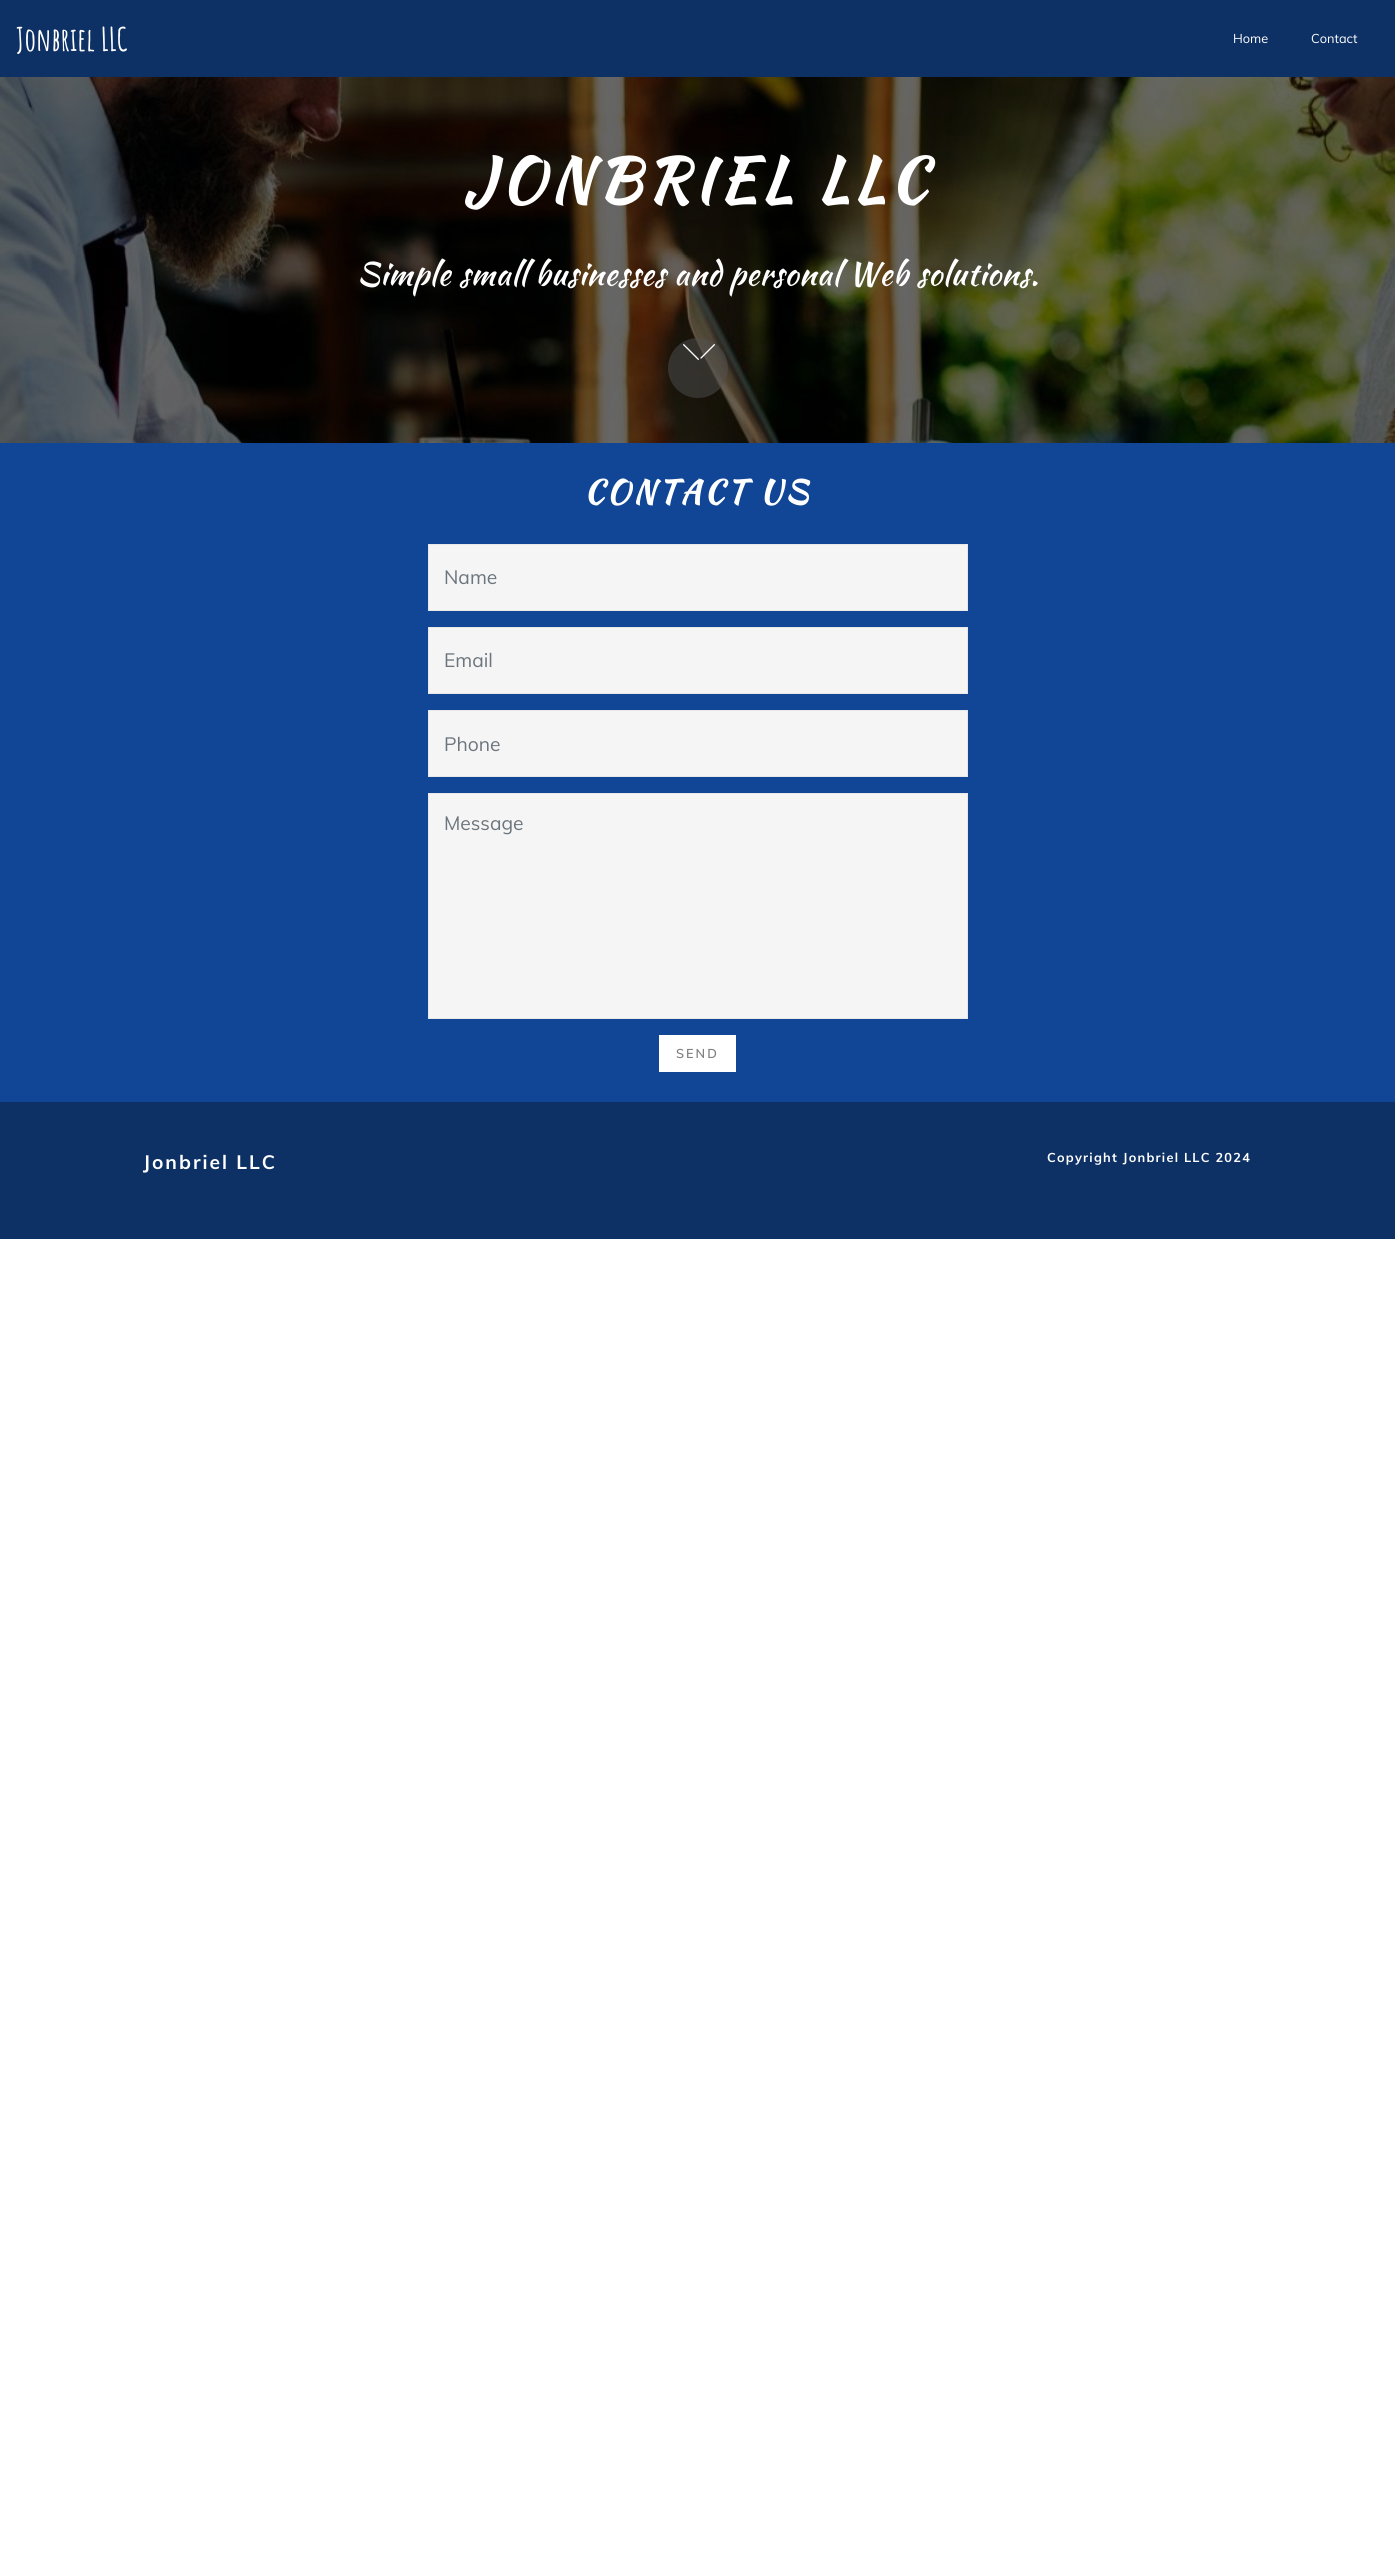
import math
import cairocffi as cairo

surface = cairo.ImageSurface(cairo.FORMAT_RGB24, 1395, 2555)
ctx = cairo.Context(surface)
options = cairo.FontOptions()
options.set_hint_metrics(cairo.HINT_METRICS_OFF)
options.set_hint_style(cairo.HINT_STYLE_NONE)
ctx.set_font_options(options)
ctx.set_miter_limit(4)


def rgb(r, g, b):
    ctx.set_source_rgb(r / 255, g / 255, b / 255)


def face(family, size, italic, bold):
    ctx.select_font_face(family, cairo.FONT_SLANT_ITALIC if italic else cairo.FONT_SLANT_NORMAL, cairo.FONT_WEIGHT_BOLD if bold else cairo.FONT_WEIGHT_NORMAL)
    ctx.set_font_size(size)


def label(x, y, s):
    ctx.move_to(x, y)
    ctx.show_text(s)


def tracked(x, y, s, letter, word):
    ctx.move_to(x, y)
    for ch in s:
        ctx.show_text(ch)
        ctx.rel_move_to(letter + word * (ch == ' '), 0)


def rect(x, y, w, h):
    ctx.rectangle(x, y, w, h)
    ctx.fill()


def image(path, x, y, w, h):
    ctx.save()
    ctx.set_source_surface(cairo.ImageSurface.create_from_png(path), x, y)
    ctx.rectangle(x, y, w, h)
    ctx.fill()
    ctx.restore()


rgb(255, 255, 255)
ctx.paint()
rgb(14, 49, 101)
rect(0, 0, 1395, 77)
face('Amatic SC', 32, 0, 1)
rgb(255, 255, 255)
label(16, 51, 'Jonbriel LLC')
face('Muli', 12.75, 0, 0)
label(1233, 43, 'Home')
label(1311, 43, 'Contact')
image('image0.png', 0, 77, 1395, 366)
face('Kaushan Script', 60, 0, 1)
tracked(464, 201, 'JONBRIEL LLC', 6, 0)
face('Kaushan Script', 32, 0, 0)
tracked(357, 285, 'Simple small businesses and personal Web solutions.', 0.48, 0)
ctx.set_source_rgba(0.314, 0.314, 0.314, 0.5)
ctx.new_path()
ctx.arc(698, 368, 30, 0, 2 * math.pi)
ctx.fill()
image('image1.png', 683, 344, 32, 16)
rgb(16, 70, 149)
rect(0, 443, 1395, 659)
face('Kaushan Script', 32, 0, 1)
rgb(255, 255, 255)
tracked(584, 503, 'CONTACT US', 3.25, 0)
rgb(245, 245, 245)
ctx.rectangle(428.5, 544.5, 539, 66)
ctx.fill_preserve()
rgb(232, 232, 232)
ctx.set_line_width(1)
ctx.stroke()
face('Muli', 19.25, 0, 0)
rgb(108, 117, 125)
label(444, 584, 'Name')
rgb(245, 245, 245)
ctx.rectangle(428.5, 627.5, 539, 66)
ctx.fill_preserve()
rgb(232, 232, 232)
ctx.stroke()
rgb(108, 117, 125)
label(444, 667, 'Email')
rgb(245, 245, 245)
ctx.rectangle(428.5, 710.5, 539, 66)
ctx.fill_preserve()
rgb(232, 232, 232)
ctx.stroke()
rgb(108, 117, 125)
label(444, 751, 'Phone')
rgb(245, 245, 245)
ctx.rectangle(428.5, 793.5, 539, 225)
ctx.fill_preserve()
rgb(232, 232, 232)
ctx.stroke()
rgb(108, 117, 125)
label(444, 830, 'Message')
rgb(255, 255, 255)
rect(659, 1035, 77, 37)
face('Muli SemiBold', 12.75, 0, 0)
rgb(128, 128, 128)
tracked(676, 1058, 'SEND', 2, 0)
rgb(14, 49, 101)
rect(0, 1102, 1395, 137)
face('Muli', 19.25, 0, 1)
rgb(255, 255, 255)
tracked(143, 1169, 'Jonbriel LLC', 2, 0)
face('Muli', 12.75, 0, 1)
tracked(1047, 1162, 'Copyright Jonbriel LLC 2024', 1.25, 0)
surface.write_to_png('render.png')
